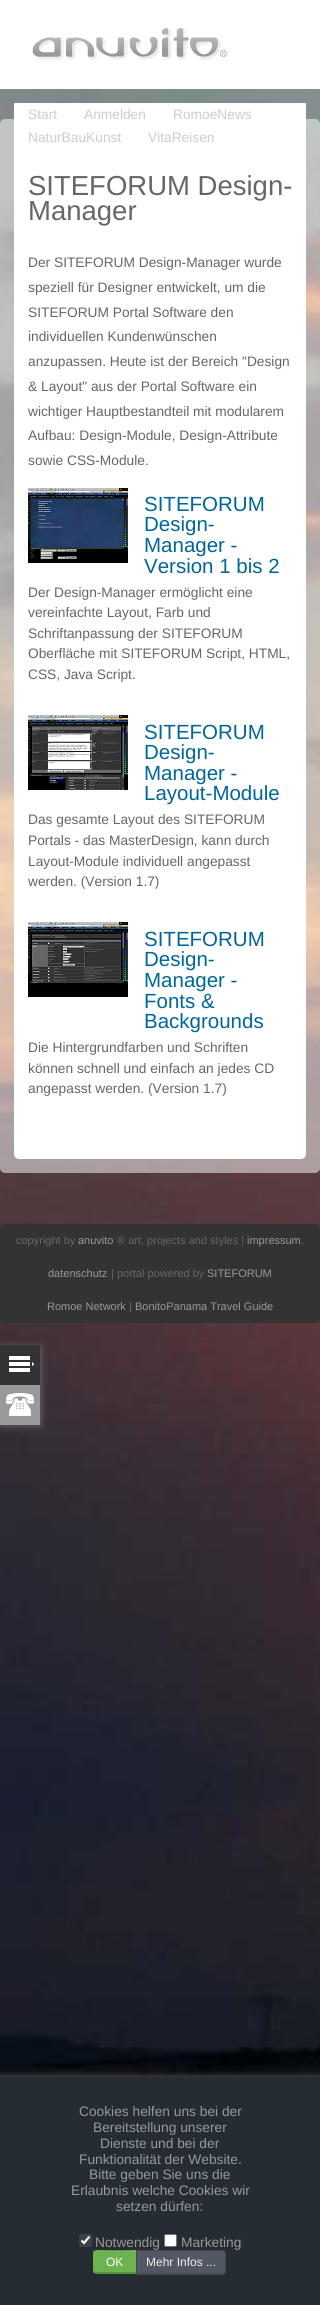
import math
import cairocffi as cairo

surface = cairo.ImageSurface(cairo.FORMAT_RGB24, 320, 2305)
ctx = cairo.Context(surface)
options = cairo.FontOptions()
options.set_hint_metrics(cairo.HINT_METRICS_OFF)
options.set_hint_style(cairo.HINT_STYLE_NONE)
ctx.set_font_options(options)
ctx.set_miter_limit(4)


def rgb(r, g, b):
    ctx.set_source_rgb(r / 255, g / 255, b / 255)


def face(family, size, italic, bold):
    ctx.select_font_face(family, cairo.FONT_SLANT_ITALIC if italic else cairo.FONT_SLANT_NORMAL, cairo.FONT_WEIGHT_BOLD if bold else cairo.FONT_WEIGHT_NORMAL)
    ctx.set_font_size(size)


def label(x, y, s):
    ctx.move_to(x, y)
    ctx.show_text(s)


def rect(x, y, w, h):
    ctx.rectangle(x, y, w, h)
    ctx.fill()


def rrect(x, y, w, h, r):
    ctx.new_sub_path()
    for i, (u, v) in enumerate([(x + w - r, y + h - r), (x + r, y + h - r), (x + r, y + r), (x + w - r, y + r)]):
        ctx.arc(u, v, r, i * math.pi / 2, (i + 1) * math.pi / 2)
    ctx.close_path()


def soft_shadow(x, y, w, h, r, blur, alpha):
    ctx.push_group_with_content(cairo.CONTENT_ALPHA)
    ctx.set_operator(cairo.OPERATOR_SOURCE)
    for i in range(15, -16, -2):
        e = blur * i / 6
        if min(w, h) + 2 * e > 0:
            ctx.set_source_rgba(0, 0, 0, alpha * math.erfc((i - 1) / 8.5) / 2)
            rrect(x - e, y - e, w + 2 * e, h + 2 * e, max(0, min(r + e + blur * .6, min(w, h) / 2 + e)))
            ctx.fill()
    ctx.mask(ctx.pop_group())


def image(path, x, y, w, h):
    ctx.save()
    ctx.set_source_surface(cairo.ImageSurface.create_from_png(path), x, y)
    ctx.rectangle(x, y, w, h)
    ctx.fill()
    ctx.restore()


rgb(255, 255, 255)
ctx.paint()
image('image0.png', 0, 89, 320, 1988)
image('image1.png', 32, 28, 196, 32)
image('image2.png', 0, 119, 320, 1054)
rgb(255, 255, 255)
rrect(14, 133, 292, 1026, 5)
ctx.fill()
rect(14, 103, 292, 35)
face('Liberation Sans', 13.75, 0, 0)
rgb(204, 204, 204)
label(28, 119, 'Start')
label(84, 119, 'Anmelden')
label(173, 119, 'RomoeNews')
label(28, 142, 'NaturBauKunst')
label(148, 142, 'VitaReisen')
face('Liberation Sans', 27.5, 0, 0)
rgb(102, 102, 102)
label(28, 195, 'SITEFORUM Design-')
label(28, 220, 'Manager')
face('Liberation Sans', 13.75, 0, 0)
label(28, 267, 'Der SITEFORUM Design-Manager wurde')
label(28, 292, 'speziell für Designer entwickelt, um die')
label(28, 317, 'SITEFORUM Portal Software den')
label(28, 341, 'individuellen Kundenwünschen')
label(28, 366, 'anzupassen. Heute ist der Bereich "Design')
label(28, 391, '& Layout" aus der Portal Software ein')
label(28, 416, 'wichtiger Hauptbestandteil mit modularem')
label(28, 440, 'Aufbau: Design-Module, Design-Attribute')
label(28, 465, 'sowie CSS-Module.')
image('image3.png', 28, 488, 100, 75)
face('Liberation Sans', 20.5, 0, 0)
rgb(0, 102, 153)
label(144, 511, 'SITEFORUM')
label(144, 531, 'Design-')
label(144, 552, 'Manager -')
label(144, 573, 'Version 1 bis 2')
face('Liberation Sans', 13.75, 0, 0)
rgb(102, 102, 102)
label(28, 597, 'Der Design-Manager ermöglicht eine')
label(28, 617, 'vereinfachte Layout, Farb und')
label(28, 638, 'Schriftanpassung der SITEFORUM')
label(28, 658, 'Oberfläche mit SITEFORUM Script, HTML,')
label(28, 679, 'CSS, Java Script.')
image('image4.png', 28, 715, 100, 75)
face('Liberation Sans', 20.5, 0, 0)
rgb(0, 102, 153)
label(144, 739, 'SITEFORUM')
label(144, 759, 'Design-')
label(144, 780, 'Manager -')
label(144, 800, 'Layout-Module')
face('Liberation Sans', 13.75, 0, 0)
rgb(102, 102, 102)
label(28, 824, 'Das gesamte Layout des SITEFORUM')
label(28, 845, 'Portals - das MasterDesign, kann durch')
label(28, 866, 'Layout-Module individuell angepasst')
label(28, 886, 'werden. (Version 1.7)')
image('image5.png', 28, 922, 100, 75)
face('Liberation Sans', 20.5, 0, 0)
rgb(0, 102, 153)
label(144, 946, 'SITEFORUM')
label(144, 966, 'Design-')
label(144, 987, 'Manager -')
label(144, 1008, 'Fonts &')
label(144, 1028, 'Backgrounds')
face('Liberation Sans', 13.75, 0, 0)
rgb(102, 102, 102)
label(28, 1052, 'Die Hintergrundfarben und Schriften')
label(28, 1073, 'können schnell und einfach an jedes CD')
label(28, 1093, 'angepasst werden. (Version 1.7)')
rgb(51, 51, 51)
rrect(0, 1224, 320, 99, 5)
ctx.fill()
face('Liberation Sans', 11, 0, 0)
rgb(102, 102, 102)
label(16, 1244, 'copyright by')
rgb(153, 153, 153)
label(78, 1244, 'anuvito')
rgb(102, 102, 102)
label(117, 1244, '® art, projects and styles |')
rgb(153, 153, 153)
label(247, 1244, 'impressum')
rgb(102, 102, 102)
label(301, 1244, ',')
rgb(153, 153, 153)
label(48, 1277, 'datenschutz')
rgb(102, 102, 102)
label(111, 1277, '| portal powered by')
rgb(153, 153, 153)
label(207, 1277, 'SITEFORUM')
label(47, 1310, 'Romoe Network')
rgb(102, 102, 102)
label(129, 1310, '|')
rgb(153, 153, 153)
label(135, 1310, 'BonitoPanama Travel Guide')
rgb(102, 102, 102)
soft_shadow(1, 1346, 40, 80, 0, 3.5, 1)
rgb(51, 51, 51)
rect(0, 1345, 40, 40)
image('image6.png', 9, 1356, 25, 16)
rgb(153, 153, 153)
rect(0, 1385, 40, 40)
image('image7.png', 6, 1393, 28, 23)
rgb(102, 102, 102)
soft_shadow(-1, 2077, 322, 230, 0, 4.5, 1)
rgb(37, 44, 51)
rect(0, 2077, 320, 228)
face('Liberation Sans', 13.75, 0, 0)
rgb(153, 153, 153)
label(79, 2116, 'Cookies helfen uns bei der')
label(93, 2132, 'Bereitstellung unserer')
label(100, 2148, 'Dienste und bei der')
label(79, 2164, 'Funktionalität der Website.')
label(89, 2179, 'Bitte geben Sie uns die')
label(71, 2195, 'Erlaubnis welche Cookies wir')
label(116, 2211, 'setzen dürfen:')
rgb(61, 66, 71)
rrect(79, 2234, 13, 13, 2)
ctx.fill()
ctx.new_path()
ctx.move_to(81.5, 2240.5)
ctx.line_to(84, 2243)
ctx.line_to(89.5, 2236.5)
rgb(255, 255, 255)
ctx.set_line_width(2.1)
ctx.stroke()
rgb(153, 153, 153)
label(95, 2247, 'Notwendig')
rgb(255, 255, 255)
rrect(164.5, 2234.5, 12, 12, 1.5)
ctx.fill_preserve()
rgb(118, 118, 118)
ctx.set_line_width(1)
ctx.stroke()
rgb(153, 153, 153)
label(181, 2247, 'Marketing')
rgb(109, 179, 79)
ctx.new_path()
ctx.move_to(96, 2251)
ctx.line_to(136, 2251)
ctx.line_to(136, 2272)
ctx.line_to(96, 2272)
ctx.curve_to(95, 2272, 94, 2272, 94, 2271)
ctx.line_to(94, 2253)
ctx.curve_to(94, 2252, 95, 2251, 96, 2251)
ctx.close_path()
ctx.fill()
ctx.new_path()
ctx.move_to(96, 2250)
ctx.line_to(94, 2251)
ctx.line_to(95, 2252)
ctx.curve_to(96, 2250, 131, 2251, 136, 2251)
ctx.line_to(137, 2250)
ctx.close_path()
ctx.fill()
rgb(87, 150, 60)
ctx.new_path()
ctx.move_to(137, 2274)
ctx.line_to(136, 2272)
ctx.curve_to(132, 2272, 95, 2272, 94, 2272)
ctx.line_to(94, 2273)
ctx.line_to(96, 2274)
ctx.close_path()
ctx.fill()
rgb(109, 179, 79)
ctx.new_path()
ctx.move_to(93, 2253)
ctx.line_to(93, 2271)
ctx.curve_to(93, 2272, 93, 2272.5, 93.5, 2273)
ctx.line_to(94, 2271.5)
ctx.line_to(94, 2253)
ctx.line_to(94.5, 2251.5)
ctx.line_to(94, 2251)
ctx.curve_to(93, 2251, 93, 2252, 93, 2253)
ctx.close_path()
ctx.fill()
face('Liberation Sans', 12, 0, 0)
rgb(255, 255, 255)
label(106, 2266, 'OK')
rgb(82, 88, 99)
ctx.new_path()
ctx.move_to(137, 2251)
ctx.line_to(223, 2251)
ctx.curve_to(224, 2251, 225, 2252, 225, 2253)
ctx.line_to(225, 2272)
ctx.curve_to(225, 2273, 224, 2273, 223, 2273)
ctx.line_to(137, 2273)
ctx.close_path()
ctx.fill()
ctx.new_path()
ctx.move_to(136.5, 2250.5)
ctx.line_to(223, 2250.5)
ctx.curve_to(224.5, 2250.5, 225.5, 2251.5, 225.5, 2253)
ctx.line_to(225.5, 2272)
ctx.curve_to(225.5, 2273.5, 224.5, 2274.5, 223, 2274.5)
ctx.line_to(136.5, 2274.5)
ctx.close_path()
rgb(66, 71, 77)
ctx.stroke()
rect(136, 2273, 89, 1)
rgb(238, 238, 238)
label(146, 2266, 'Mehr Infos ...')
surface.write_to_png('render.png')
